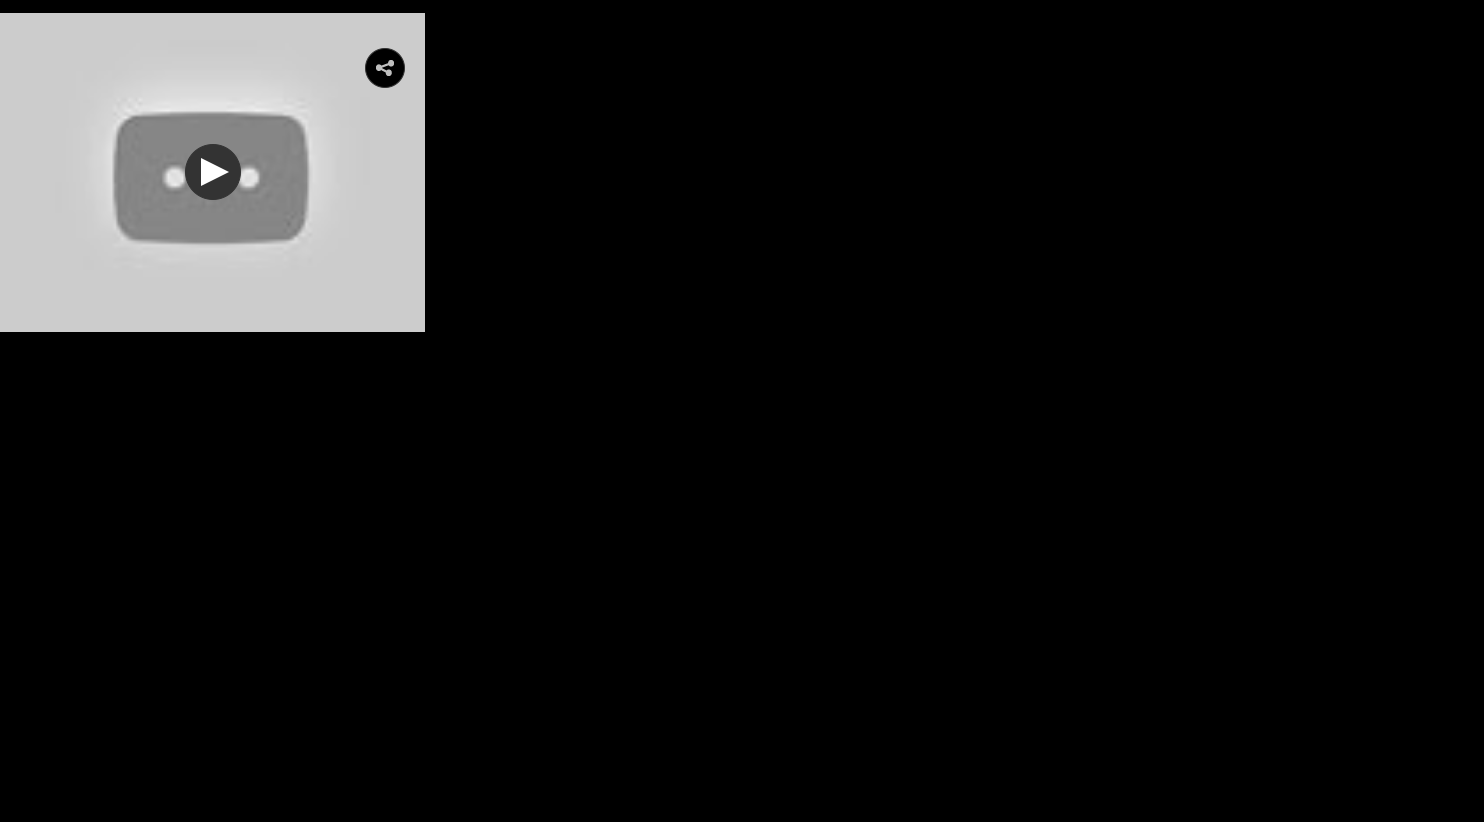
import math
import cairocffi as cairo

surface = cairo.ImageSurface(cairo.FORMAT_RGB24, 1484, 822)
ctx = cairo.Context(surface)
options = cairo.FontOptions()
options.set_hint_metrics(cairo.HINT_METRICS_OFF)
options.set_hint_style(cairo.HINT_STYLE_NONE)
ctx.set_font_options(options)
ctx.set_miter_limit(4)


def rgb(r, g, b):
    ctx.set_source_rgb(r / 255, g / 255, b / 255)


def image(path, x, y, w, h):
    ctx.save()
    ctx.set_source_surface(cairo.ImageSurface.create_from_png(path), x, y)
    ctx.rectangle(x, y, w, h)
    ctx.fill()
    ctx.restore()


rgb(0, 0, 0)
ctx.paint()
image('image0.png', 0, 13, 425, 319)
rgb(0, 0, 0)
ctx.arc(385, 68, 19.5, 0, 2 * math.pi)
ctx.fill_preserve()
rgb(51, 51, 51)
ctx.set_line_width(1)
ctx.stroke()
image('image1.png', 376, 60, 18, 16)
ctx.arc(213, 172, 27.5, 0, 2 * math.pi)
ctx.fill_preserve()
ctx.stroke()
rgb(255, 255, 255)
ctx.new_path()
ctx.move_to(229, 172)
ctx.line_to(201, 186)
ctx.line_to(201, 158)
ctx.close_path()
ctx.fill()
surface.write_to_png('render.png')
